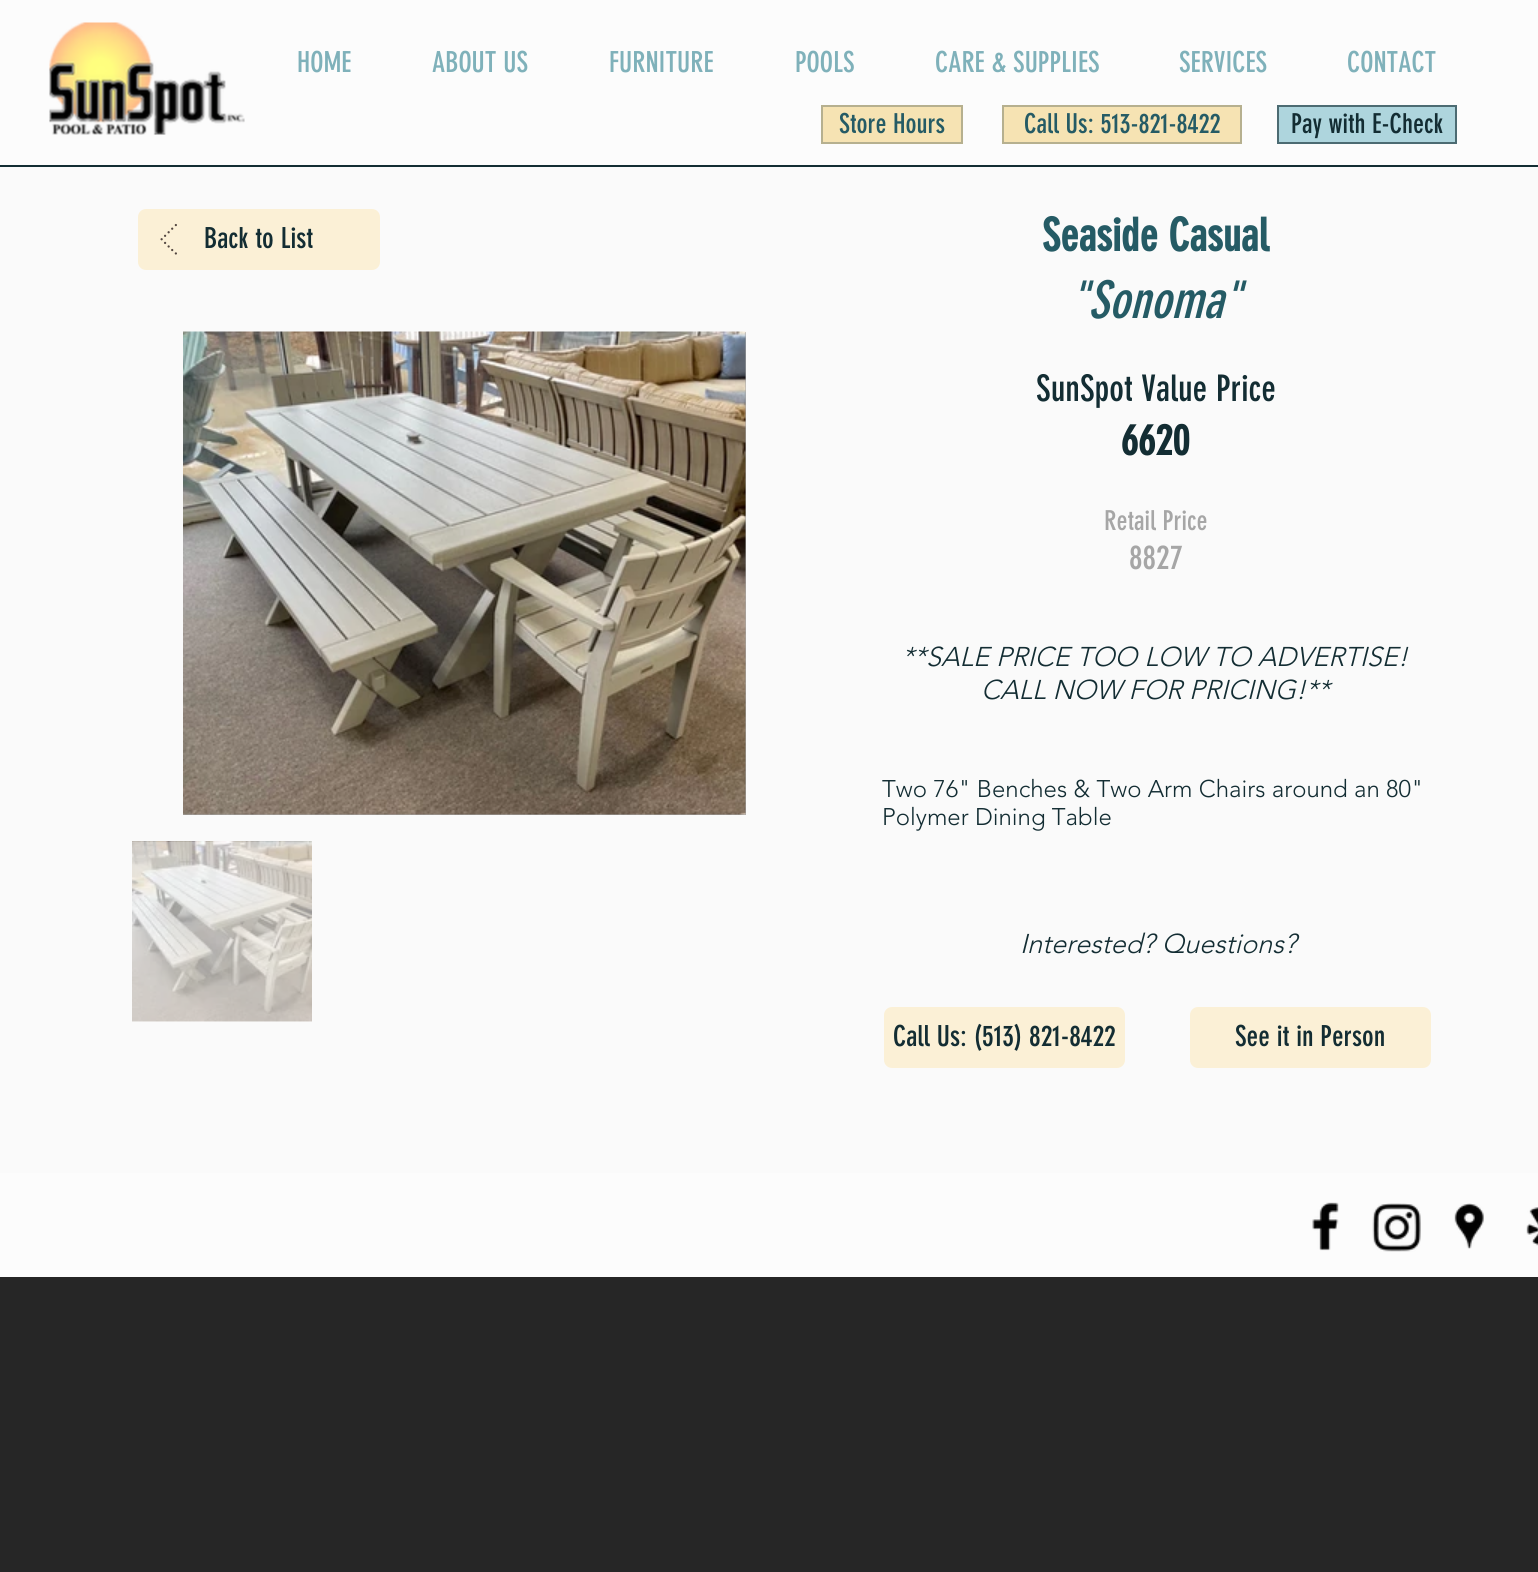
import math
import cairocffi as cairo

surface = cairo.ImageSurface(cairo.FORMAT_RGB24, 1538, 1572)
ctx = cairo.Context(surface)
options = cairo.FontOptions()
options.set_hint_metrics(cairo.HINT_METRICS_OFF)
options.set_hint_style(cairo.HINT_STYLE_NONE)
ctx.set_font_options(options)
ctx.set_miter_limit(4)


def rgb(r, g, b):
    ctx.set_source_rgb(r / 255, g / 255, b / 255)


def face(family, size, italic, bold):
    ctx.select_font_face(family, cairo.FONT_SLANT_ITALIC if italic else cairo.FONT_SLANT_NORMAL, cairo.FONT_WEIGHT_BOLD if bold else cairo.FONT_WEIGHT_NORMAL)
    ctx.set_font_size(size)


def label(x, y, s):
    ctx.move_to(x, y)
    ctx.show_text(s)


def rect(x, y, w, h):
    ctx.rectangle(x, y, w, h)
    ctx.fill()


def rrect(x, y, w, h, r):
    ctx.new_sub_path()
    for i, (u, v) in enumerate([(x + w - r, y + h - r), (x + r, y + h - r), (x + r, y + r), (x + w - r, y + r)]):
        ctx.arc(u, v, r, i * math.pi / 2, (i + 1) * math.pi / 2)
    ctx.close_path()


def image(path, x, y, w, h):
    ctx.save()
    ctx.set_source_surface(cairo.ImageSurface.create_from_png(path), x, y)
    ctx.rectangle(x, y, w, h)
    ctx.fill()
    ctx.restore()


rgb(38, 38, 38)
ctx.paint()
rgb(252, 252, 252)
rect(0, 0, 1538, 165)
rgb(19, 45, 51)
rect(0, 165, 1538, 2)
image('image0.png', 49, 22, 196, 113)
face('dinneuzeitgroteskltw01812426', 28.5, 0, 0)
rgb(127, 177, 186)
label(297, 72, 'HOME')
label(432, 72, 'ABOUT US')
label(609, 72, 'FURNITURE')
label(795, 72, 'POOLS')
label(935, 72, 'CARE & SUPPLIES')
label(1179, 72, 'SERVICES')
label(1347, 72, 'CONTACT')
rgb(246, 227, 179)
ctx.rectangle(822, 106, 140, 37)
ctx.fill_preserve()
rgb(182, 176, 143)
ctx.stroke()
face('dinneuzeitgroteskltw01812426', 27, 0, 0)
rgb(37, 91, 101)
label(839, 133, 'Store Hours')
rgb(246, 227, 179)
ctx.rectangle(1003, 106, 238, 37)
ctx.fill_preserve()
rgb(182, 176, 143)
ctx.stroke()
rgb(37, 91, 101)
label(1024, 133, 'Call Us: 513-821-8422')
rgb(174, 213, 221)
ctx.rectangle(1278, 106, 178, 37)
ctx.fill_preserve()
rgb(76, 107, 114)
ctx.stroke()
rgb(19, 45, 51)
label(1291, 133, 'Pay with E-Check')
rgb(250, 250, 250)
rect(0, 167, 1538, 1006)
rgb(251, 240, 214)
rrect(138, 209, 242, 61, 8)
ctx.fill()
image('image1.png', 160, 223, 17, 32)
face('dinneuzeitgroteskltw01812426', 28.5, 0, 0)
rgb(19, 45, 51)
label(204, 248, 'Back to List')
face('dinneuzeitgroteskltw01812426', 45, 0, 1)
rgb(37, 91, 101)
label(1042, 251, 'Seaside Casual')
face('dinneuzeitgroteskltw01812426', 51, 1, 0)
label(1070, 318, '"Sonoma"')
rgb(166, 166, 166)
rect(183, 332, 563, 483)
image('image2.png', 183, 331, 563, 484)
rgb(255, 255, 255)
rect(132, 1021, 180, 1)
image('image3.png', 132, 841, 180, 181)
face('dinneuzeitgroteskltw01812426', 36, 0, 0)
rgb(19, 45, 51)
label(1036, 401, 'SunSpot Value Price')
face('dinneuzeitgroteskltw01812426', 42, 0, 1)
label(1121, 455, '6620')
face('dinneuzeitgroteskltw01812426', 27, 0, 0)
rgb(166, 166, 166)
label(1104, 530, 'Retail Price')
face('dinneuzeitgroteskltw01812426', 33, 0, 0)
label(1129, 569, '8827')
face('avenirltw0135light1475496 Light', 27, 1, 0)
rgb(19, 45, 51)
label(902, 666, '**SALE PRICE TOO LOW TO ADVERTISE!')
label(981, 699, 'CALL NOW FOR PRICING!**')
face('avenirltw0135light1475496 Light', 24, 0, 0)
label(882, 797, 'Two 76" Benches & Two Arm Chairs around an 80"')
label(882, 825, 'Polymer Dining Table')
face('avenirltw0135light1475496 Light', 27, 1, 0)
label(1020, 953, 'Interested? Questions?')
rgb(251, 240, 214)
rrect(884, 1007, 241, 61, 8)
ctx.fill()
face('dinneuzeitgroteskltw01812426', 28.5, 0, 0)
rgb(19, 45, 51)
label(893, 1046, 'Call Us: (513) 821-8422')
rgb(251, 240, 214)
rrect(1190, 1007, 241, 61, 8)
ctx.fill()
rgb(19, 45, 51)
label(1235, 1046, 'See it in Person')
rgb(252, 252, 252)
rect(0, 1173, 1538, 104)
image('image4.png', 1312, 1202, 27, 49)
image('image5.png', 1372, 1203, 49, 49)
image('image6.png', 1454, 1203, 30, 46)
image('image7.png', 1526, 1207, 12, 39)
surface.write_to_png('render.png')
